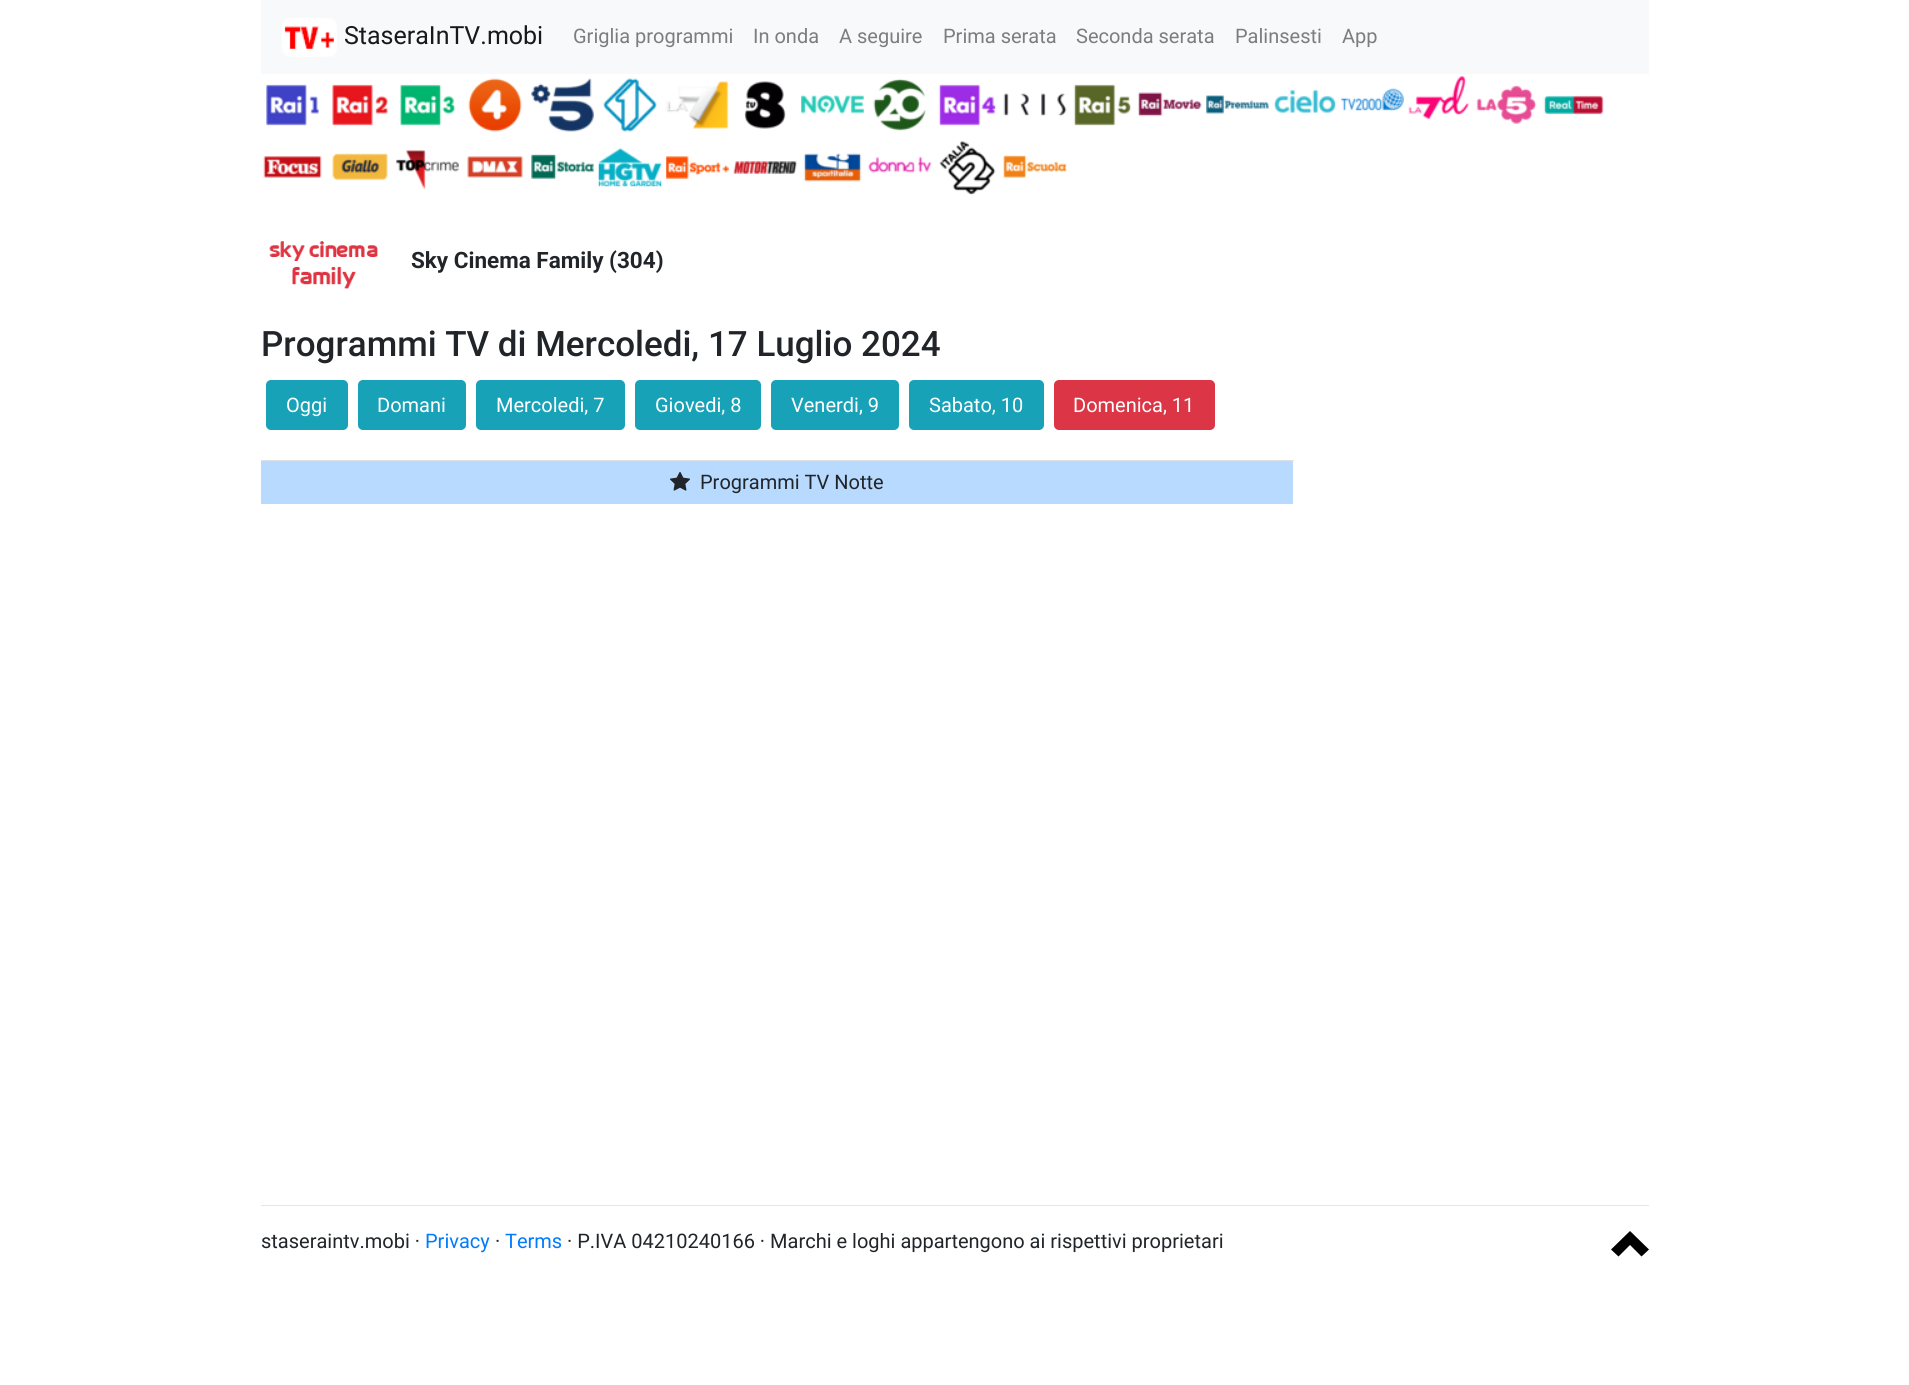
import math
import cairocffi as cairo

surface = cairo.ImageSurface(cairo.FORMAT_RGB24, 1909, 1385)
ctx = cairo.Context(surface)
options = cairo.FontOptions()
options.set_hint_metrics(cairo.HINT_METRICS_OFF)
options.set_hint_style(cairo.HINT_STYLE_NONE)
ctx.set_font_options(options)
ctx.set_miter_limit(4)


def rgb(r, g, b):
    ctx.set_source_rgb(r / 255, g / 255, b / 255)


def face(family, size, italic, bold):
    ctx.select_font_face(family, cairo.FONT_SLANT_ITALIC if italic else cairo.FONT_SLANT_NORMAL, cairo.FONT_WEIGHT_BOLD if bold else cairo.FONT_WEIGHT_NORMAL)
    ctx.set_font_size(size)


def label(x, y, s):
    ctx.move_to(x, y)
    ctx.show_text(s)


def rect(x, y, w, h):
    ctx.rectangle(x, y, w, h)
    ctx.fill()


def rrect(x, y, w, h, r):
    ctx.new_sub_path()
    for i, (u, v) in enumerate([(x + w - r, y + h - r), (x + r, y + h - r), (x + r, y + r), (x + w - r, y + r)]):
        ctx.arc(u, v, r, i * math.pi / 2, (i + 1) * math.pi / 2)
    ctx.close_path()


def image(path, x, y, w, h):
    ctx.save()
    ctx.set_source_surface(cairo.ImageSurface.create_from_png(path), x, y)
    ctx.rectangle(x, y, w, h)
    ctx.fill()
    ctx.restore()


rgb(255, 255, 255)
ctx.paint()
rgb(248, 249, 250)
rect(261, 0, 1388, 74)
image('image0.png', 281, 18, 56, 39)
face('Roboto', 25, 0, 0)
rgb(25, 25, 25)
label(344, 44, 'StaseraInTV.mobi')
face('Roboto', 20, 0, 0)
rgb(124, 125, 125)
label(573, 43, 'Griglia programmi')
label(753, 43, 'In onda')
label(839, 43, 'A seguire')
label(943, 43, 'Prima serata')
label(1076, 43, 'Seconda serata')
label(1235, 43, 'Palinsesti')
label(1342, 43, 'App')
image('image1.png', 266, 84, 53, 42)
image('image2.png', 332, 84, 56, 42)
image('image3.png', 400, 84, 56, 42)
image('image4.png', 468, 78, 54, 54)
image('image5.png', 531, 78, 63, 54)
image('image6.png', 603, 78, 54, 54)
image('image7.png', 666, 81, 63, 48)
image('image8.png', 744, 81, 42, 48)
image('image9.png', 801, 94, 63, 20)
image('image10.png', 873, 79, 54, 52)
image('image11.png', 938, 84, 59, 42)
image('image12.png', 1003, 93, 64, 23)
image('image13.png', 1073, 84, 59, 42)
image('image14.png', 1138, 92, 64, 25)
image('image15.png', 1206, 95, 63, 19)
image('image16.png', 1273, 89, 64, 25)
image('image17.png', 1341, 88, 63, 23)
image('image18.png', 1408, 76, 61, 44)
image('image19.png', 1476, 85, 61, 39)
image('image20.png', 1543, 95, 61, 20)
image('image21.png', 263, 156, 59, 22)
image('image22.png', 332, 153, 56, 28)
image('image23.png', 396, 150, 63, 39)
image('image24.png', 467, 156, 56, 22)
image('image25.png', 531, 154, 63, 25)
image('image26.png', 598, 148, 64, 39)
image('image27.png', 666, 156, 63, 23)
image('image28.png', 733, 161, 64, 13)
image('image29.png', 803, 153, 59, 29)
image('image30.png', 868, 156, 64, 17)
image('image31.png', 939, 141, 57, 54)
image('image32.png', 1003, 155, 64, 23)
image('image33.png', 269, 241, 109, 48)
face('Roboto', 22.5, 0, 1)
rgb(33, 37, 41)
label(411, 268, 'Sky Cinema Family (304)')
face('Roboto Medium', 35, 0, 0)
label(261, 356, 'Programmi TV di Mercoledi, 17 Luglio 2024')
rgb(23, 162, 184)
rrect(266, 380, 82, 50, 5)
ctx.fill()
face('Roboto', 20, 0, 0)
rgb(255, 255, 255)
label(286, 412, 'Oggi')
rgb(23, 162, 184)
rrect(358, 380, 108, 50, 5)
ctx.fill()
rgb(255, 255, 255)
label(377, 412, 'Domani')
rgb(23, 162, 184)
rrect(476, 380, 149, 50, 5)
ctx.fill()
rgb(255, 255, 255)
label(496, 412, 'Mercoledi, 7')
rgb(23, 162, 184)
rrect(635, 380, 126, 50, 5)
ctx.fill()
rgb(255, 255, 255)
label(655, 412, 'Giovedi, 8')
rgb(23, 162, 184)
rrect(771, 380, 128, 50, 5)
ctx.fill()
rgb(255, 255, 255)
label(791, 412, 'Venerdi, 9')
rgb(23, 162, 184)
rrect(909, 380, 135, 50, 5)
ctx.fill()
rgb(255, 255, 255)
label(929, 412, 'Sabato, 10')
rgb(220, 53, 69)
rrect(1054, 380, 161, 50, 5)
ctx.fill()
rgb(255, 255, 255)
label(1073, 412, 'Domenica, 11')
rgb(184, 218, 255)
rect(261, 461, 1032, 43)
rgb(222, 226, 230)
rect(261, 460, 1033, 1)
image('image34.png', 670, 471, 20, 20)
rgb(33, 37, 41)
label(700, 489, 'Programmi TV Notte')
rgb(230, 230, 230)
rect(261, 1205, 1388, 1)
rgb(33, 37, 41)
label(261, 1248, 'staseraintv.mobi ·')
rgb(0, 123, 255)
label(425, 1248, 'Privacy')
rgb(33, 37, 41)
label(495, 1248, '·')
rgb(0, 123, 255)
label(505, 1248, 'Terms')
rgb(33, 37, 41)
label(567, 1248, '· P.IVA 04210240166 · Marchi e loghi appartengono ai rispettivi proprietari')
rgb(0, 0, 0)
ctx.new_path()
ctx.move_to(1630, 1231)
ctx.line_to(1611, 1249.5)
ctx.line_to(1618.5, 1256.5)
ctx.line_to(1630, 1245)
ctx.line_to(1641.5, 1256.5)
ctx.line_to(1649, 1249.5)
ctx.close_path()
ctx.fill()
surface.write_to_png('render.png')
